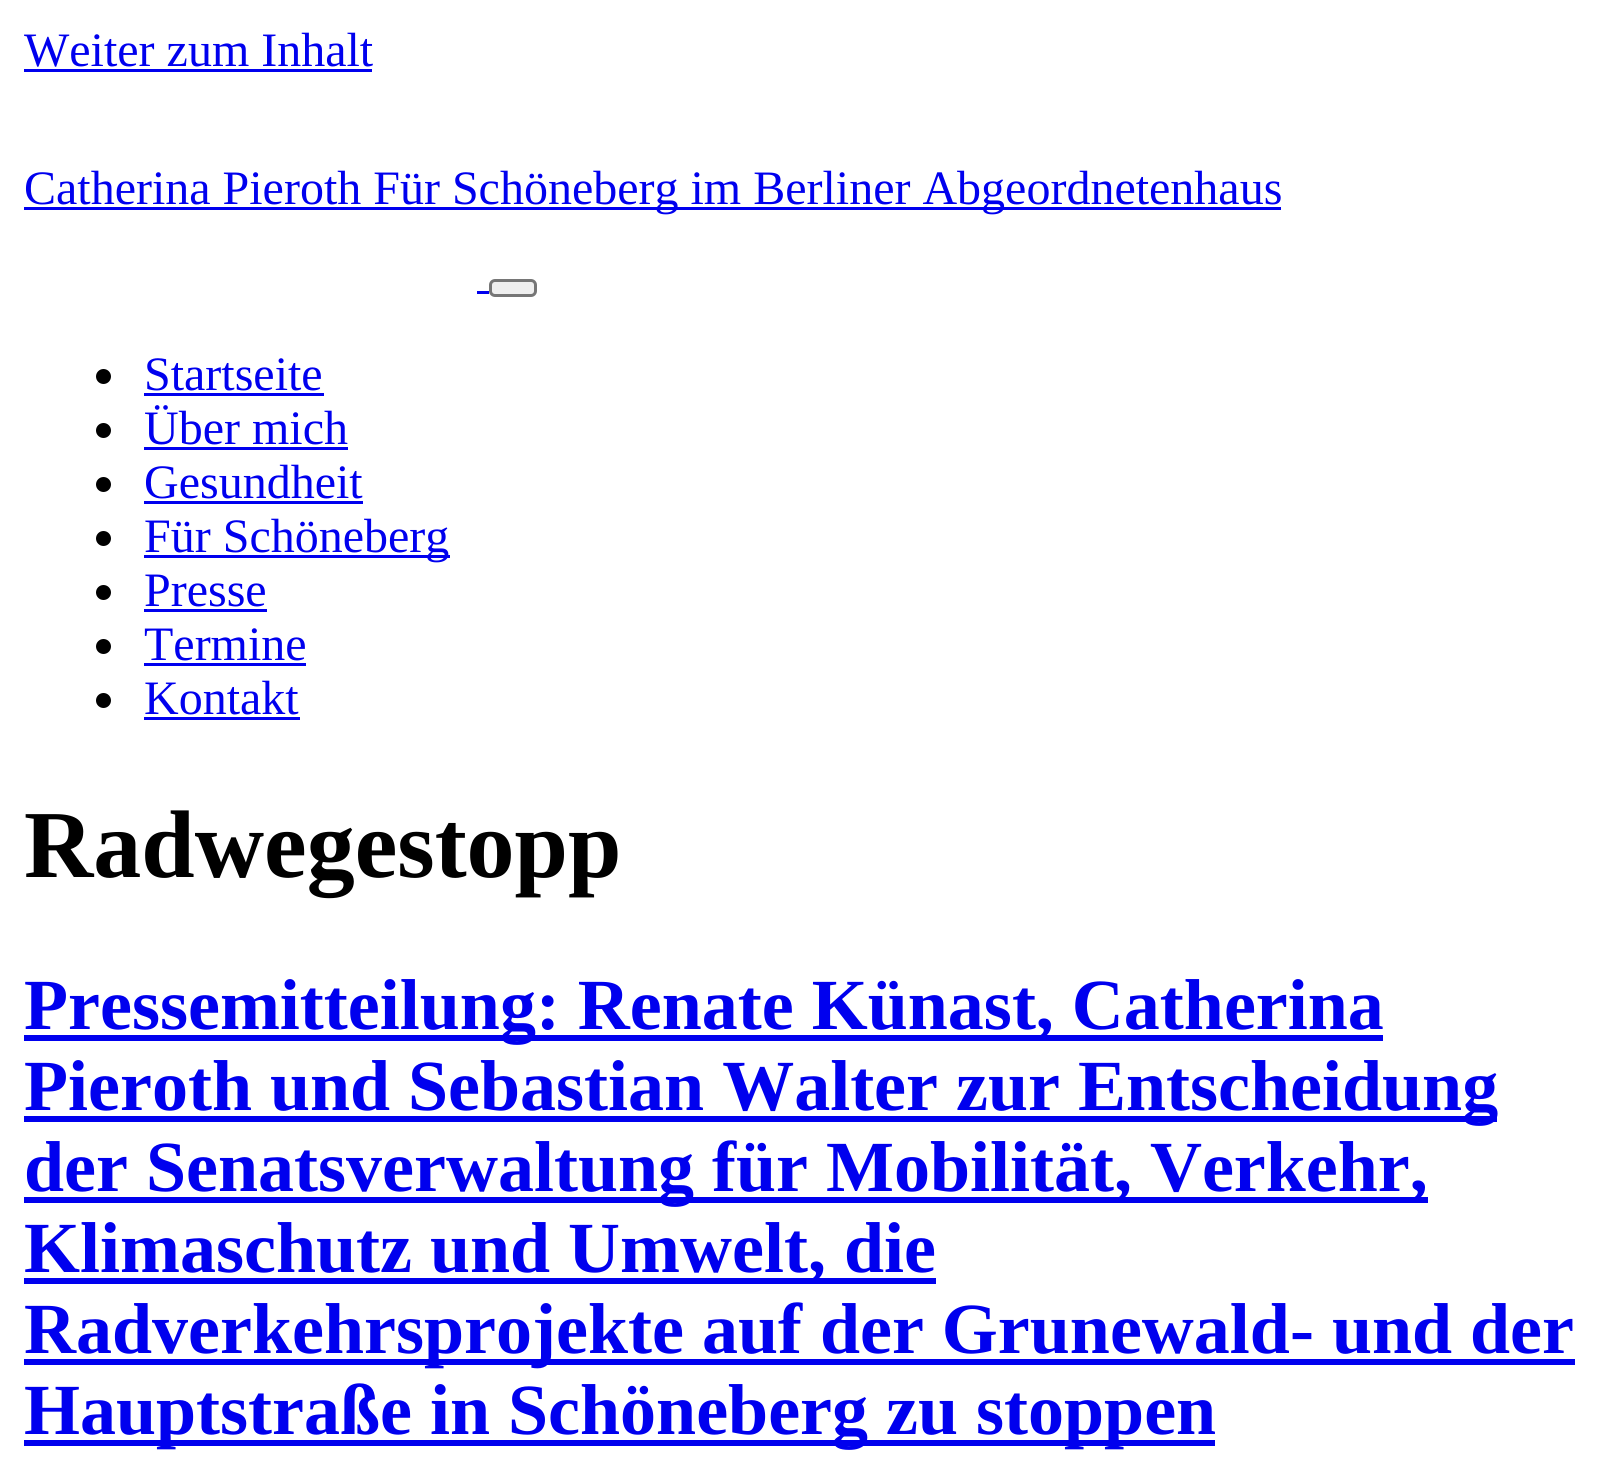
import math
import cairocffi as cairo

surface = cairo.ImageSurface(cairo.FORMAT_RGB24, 1601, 1463)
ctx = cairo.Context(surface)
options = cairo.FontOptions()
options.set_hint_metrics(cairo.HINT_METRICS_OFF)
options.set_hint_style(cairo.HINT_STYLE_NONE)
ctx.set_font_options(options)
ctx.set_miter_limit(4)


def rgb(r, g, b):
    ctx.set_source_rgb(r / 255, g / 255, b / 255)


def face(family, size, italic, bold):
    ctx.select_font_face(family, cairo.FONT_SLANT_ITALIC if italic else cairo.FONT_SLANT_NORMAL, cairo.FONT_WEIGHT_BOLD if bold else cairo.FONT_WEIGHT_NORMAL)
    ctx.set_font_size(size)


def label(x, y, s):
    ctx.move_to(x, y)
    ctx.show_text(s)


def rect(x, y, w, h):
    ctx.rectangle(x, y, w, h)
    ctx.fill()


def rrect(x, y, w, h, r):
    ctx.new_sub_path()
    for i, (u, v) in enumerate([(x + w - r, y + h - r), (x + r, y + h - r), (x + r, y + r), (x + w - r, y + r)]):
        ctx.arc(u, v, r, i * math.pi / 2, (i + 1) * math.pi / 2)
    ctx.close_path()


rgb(255, 255, 255)
ctx.paint()
face('Liberation Serif', 48, 0, 0)
rgb(0, 0, 238)
label(24, 66, 'Weiter zum Inhalt')
rect(24, 69, 348, 3)
rect(24, 207, 1257, 3)
label(24, 204, 'Catherina Pieroth Für Schöneberg im Berliner Abgeordnetenhaus')
rect(477, 291, 12, 3)
rgb(239, 239, 239)
rrect(490.5, 280.5, 45, 15, 4.5)
ctx.fill_preserve()
rgb(118, 118, 118)
ctx.set_line_width(3)
ctx.stroke()
rgb(0, 0, 0)
ctx.arc(103.5, 376.5, 7.5, 0, 2 * math.pi)
ctx.fill()
rgb(0, 0, 238)
label(144, 390, 'Startseite')
rect(144, 393, 180, 3)
rgb(0, 0, 0)
ctx.new_path()
ctx.arc(103.5, 430.5, 7.5, 0, 2 * math.pi)
ctx.fill()
rgb(0, 0, 238)
label(144, 444, 'Über mich')
rect(144, 447, 204, 3)
rgb(0, 0, 0)
ctx.new_path()
ctx.arc(103.5, 484.5, 7.5, 0, 2 * math.pi)
ctx.fill()
rgb(0, 0, 238)
label(144, 498, 'Gesundheit')
rect(144, 501, 219, 3)
rgb(0, 0, 0)
ctx.new_path()
ctx.arc(103.5, 538.5, 7.5, 0, 2 * math.pi)
ctx.fill()
rgb(0, 0, 238)
rect(144, 555, 306, 3)
label(144, 552, 'Für Schöneberg')
rgb(0, 0, 0)
ctx.new_path()
ctx.arc(103.5, 592.5, 7.5, 0, 2 * math.pi)
ctx.fill()
rgb(0, 0, 238)
label(144, 606, 'Presse')
rect(144, 609, 123, 3)
rgb(0, 0, 0)
ctx.new_path()
ctx.arc(103.5, 646.5, 7.5, 0, 2 * math.pi)
ctx.fill()
rgb(0, 0, 238)
label(144, 660, 'Termine')
rect(144, 663, 162, 3)
rgb(0, 0, 0)
ctx.new_path()
ctx.arc(103.5, 700.5, 7.5, 0, 2 * math.pi)
ctx.fill()
rgb(0, 0, 238)
label(144, 714, 'Kontakt')
rect(144, 717, 156, 3)
face('Liberation Serif', 96, 0, 1)
rgb(0, 0, 0)
label(24, 877, 'Radwegestopp')
rgb(0, 0, 238)
rect(24, 1035, 1359, 6)
face('Liberation Serif', 72, 0, 1)
label(24, 1029, 'Pressemitteilung: Renate Künast, Catherina')
rect(24, 1116, 1473, 6)
label(24, 1110, 'Pieroth und Sebastian Walter zur Entscheidung')
rect(24, 1197, 1404, 6)
label(24, 1191, 'der Senatsverwaltung für Mobilität, Verkehr,')
rect(24, 1278, 912, 6)
label(24, 1272, 'Klimaschutz und Umwelt, die')
rect(24, 1359, 1551, 6)
label(24, 1353, 'Radverkehrsprojekte auf der Grunewald- und der')
rect(24, 1440, 1191, 6)
label(24, 1434, 'Hauptstraße in Schöneberg zu stoppen')
surface.write_to_png('render.png')
